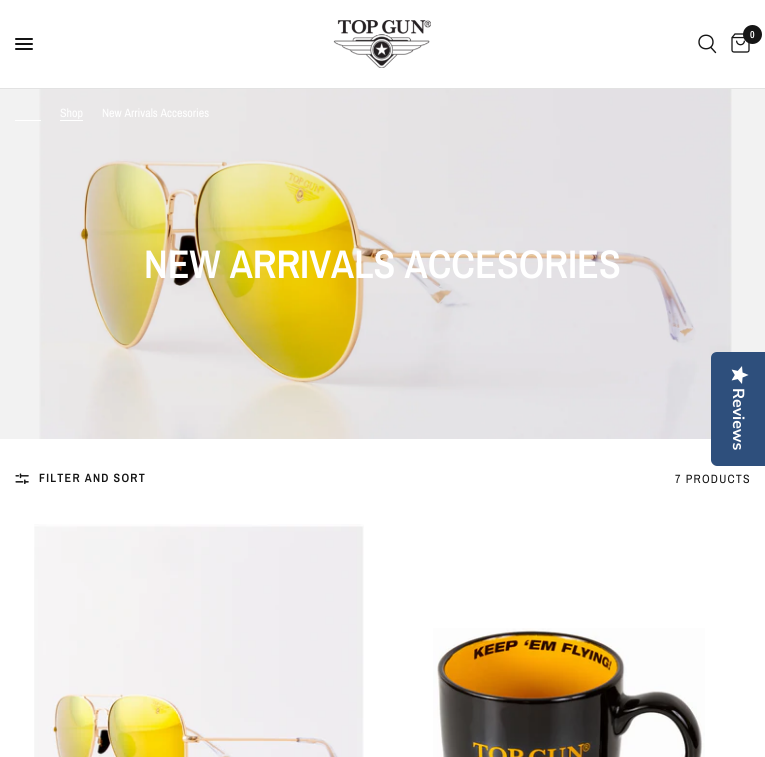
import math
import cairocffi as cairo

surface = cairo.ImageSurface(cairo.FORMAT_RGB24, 765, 757)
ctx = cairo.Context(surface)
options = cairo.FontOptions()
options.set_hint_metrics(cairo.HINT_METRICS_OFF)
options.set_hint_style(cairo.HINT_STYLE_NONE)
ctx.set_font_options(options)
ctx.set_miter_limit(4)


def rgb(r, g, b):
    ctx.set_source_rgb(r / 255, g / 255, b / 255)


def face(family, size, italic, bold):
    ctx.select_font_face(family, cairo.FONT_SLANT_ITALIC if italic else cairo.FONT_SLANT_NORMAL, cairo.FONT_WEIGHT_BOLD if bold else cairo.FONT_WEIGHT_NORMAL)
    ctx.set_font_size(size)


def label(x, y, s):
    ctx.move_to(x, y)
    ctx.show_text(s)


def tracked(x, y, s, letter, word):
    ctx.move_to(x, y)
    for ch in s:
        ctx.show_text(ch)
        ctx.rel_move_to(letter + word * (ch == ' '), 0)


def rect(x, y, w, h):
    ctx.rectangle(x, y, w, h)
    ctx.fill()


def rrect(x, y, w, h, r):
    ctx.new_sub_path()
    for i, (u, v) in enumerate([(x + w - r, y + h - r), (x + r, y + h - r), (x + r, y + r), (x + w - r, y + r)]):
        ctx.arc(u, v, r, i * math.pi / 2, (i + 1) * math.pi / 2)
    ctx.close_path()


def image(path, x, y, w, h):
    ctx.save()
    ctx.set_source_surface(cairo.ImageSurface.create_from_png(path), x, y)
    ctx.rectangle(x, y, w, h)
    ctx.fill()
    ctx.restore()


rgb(255, 255, 255)
ctx.paint()
rgb(242, 242, 242)
rect(0, 89, 765, 350)
rgb(226, 226, 226)
rect(0, 88, 765, 1)
image('image0.png', 333, 20, 98, 48)
ctx.new_path()
ctx.move_to(711, 47.5)
ctx.line_to(715.5, 52.5)
ctx.move_to(713, 42)
ctx.curve_to(713, 51, 699, 51, 699, 42)
ctx.curve_to(699, 33, 713, 33, 713, 42)
ctx.close_path()
rgb(21, 21, 21)
ctx.set_line_width(1.4)
ctx.set_line_cap(cairo.LINE_CAP_ROUND)
ctx.set_line_join(cairo.LINE_JOIN_ROUND)
ctx.stroke()
image('image1.png', 731, 33, 19, 20)
ctx.arc(752.5, 34.5, 9.5, 0, 2 * math.pi)
ctx.fill()
face('Archivo Narrow SemiBold', 10, 0, 0)
rgb(255, 255, 255)
label(750, 38, '0')
rgb(21, 21, 21)
rrect(15, 38, 18, 2, 1)
ctx.fill()
rrect(15, 43, 18, 2, 1)
ctx.fill()
rrect(15, 48, 18, 2, 1)
ctx.fill()
image('image2.png', 39, 89, 693, 350)
face('Archivo Narrow', 12, 0, 0)
rgb(255, 255, 255)
label(60, 117, 'Shop')
rect(60, 120, 23, 1)
label(102, 117, 'New Arrivals Accesories')
rect(15, 120, 26, 1)
face('Archivo Narrow SemiBold', 40, 0, 0)
label(144, 278, 'NEW ARRIVALS ACCESORIES')
image('image3.png', 15, 473, 14, 11)
face('Archivo Narrow SemiBold', 12, 0, 0)
rgb(21, 21, 21)
tracked(39, 482, 'FILTER AND SORT', 1.25, 0)
face('Archivo Narrow', 12, 0, 0)
tracked(675, 483, '7 PRODUCTS', 1.25, 0)
image('image4.png', 34, 524, 330, 233)
image('image5.png', 433, 628, 272, 129)
rgb(46, 79, 124)
ctx.new_path()
ctx.move_to(765, 352)
ctx.line_to(765, 466)
ctx.line_to(717, 466)
ctx.curve_to(714, 466, 711, 463, 711, 460)
ctx.line_to(711, 358)
ctx.curve_to(711, 354, 714, 352, 717, 352)
ctx.close_path()
ctx.fill()
image('image6.png', 731, 366, 18, 18)
face('Nunito Sans ExtraLight', 16, 0, 0)
rgb(255, 255, 255)
ctx.save()
ctx.translate(733, 388)
ctx.rotate(90 * math.pi / 180)
label(0, 0, 'Reviews')
ctx.restore()
surface.write_to_png('render.png')
